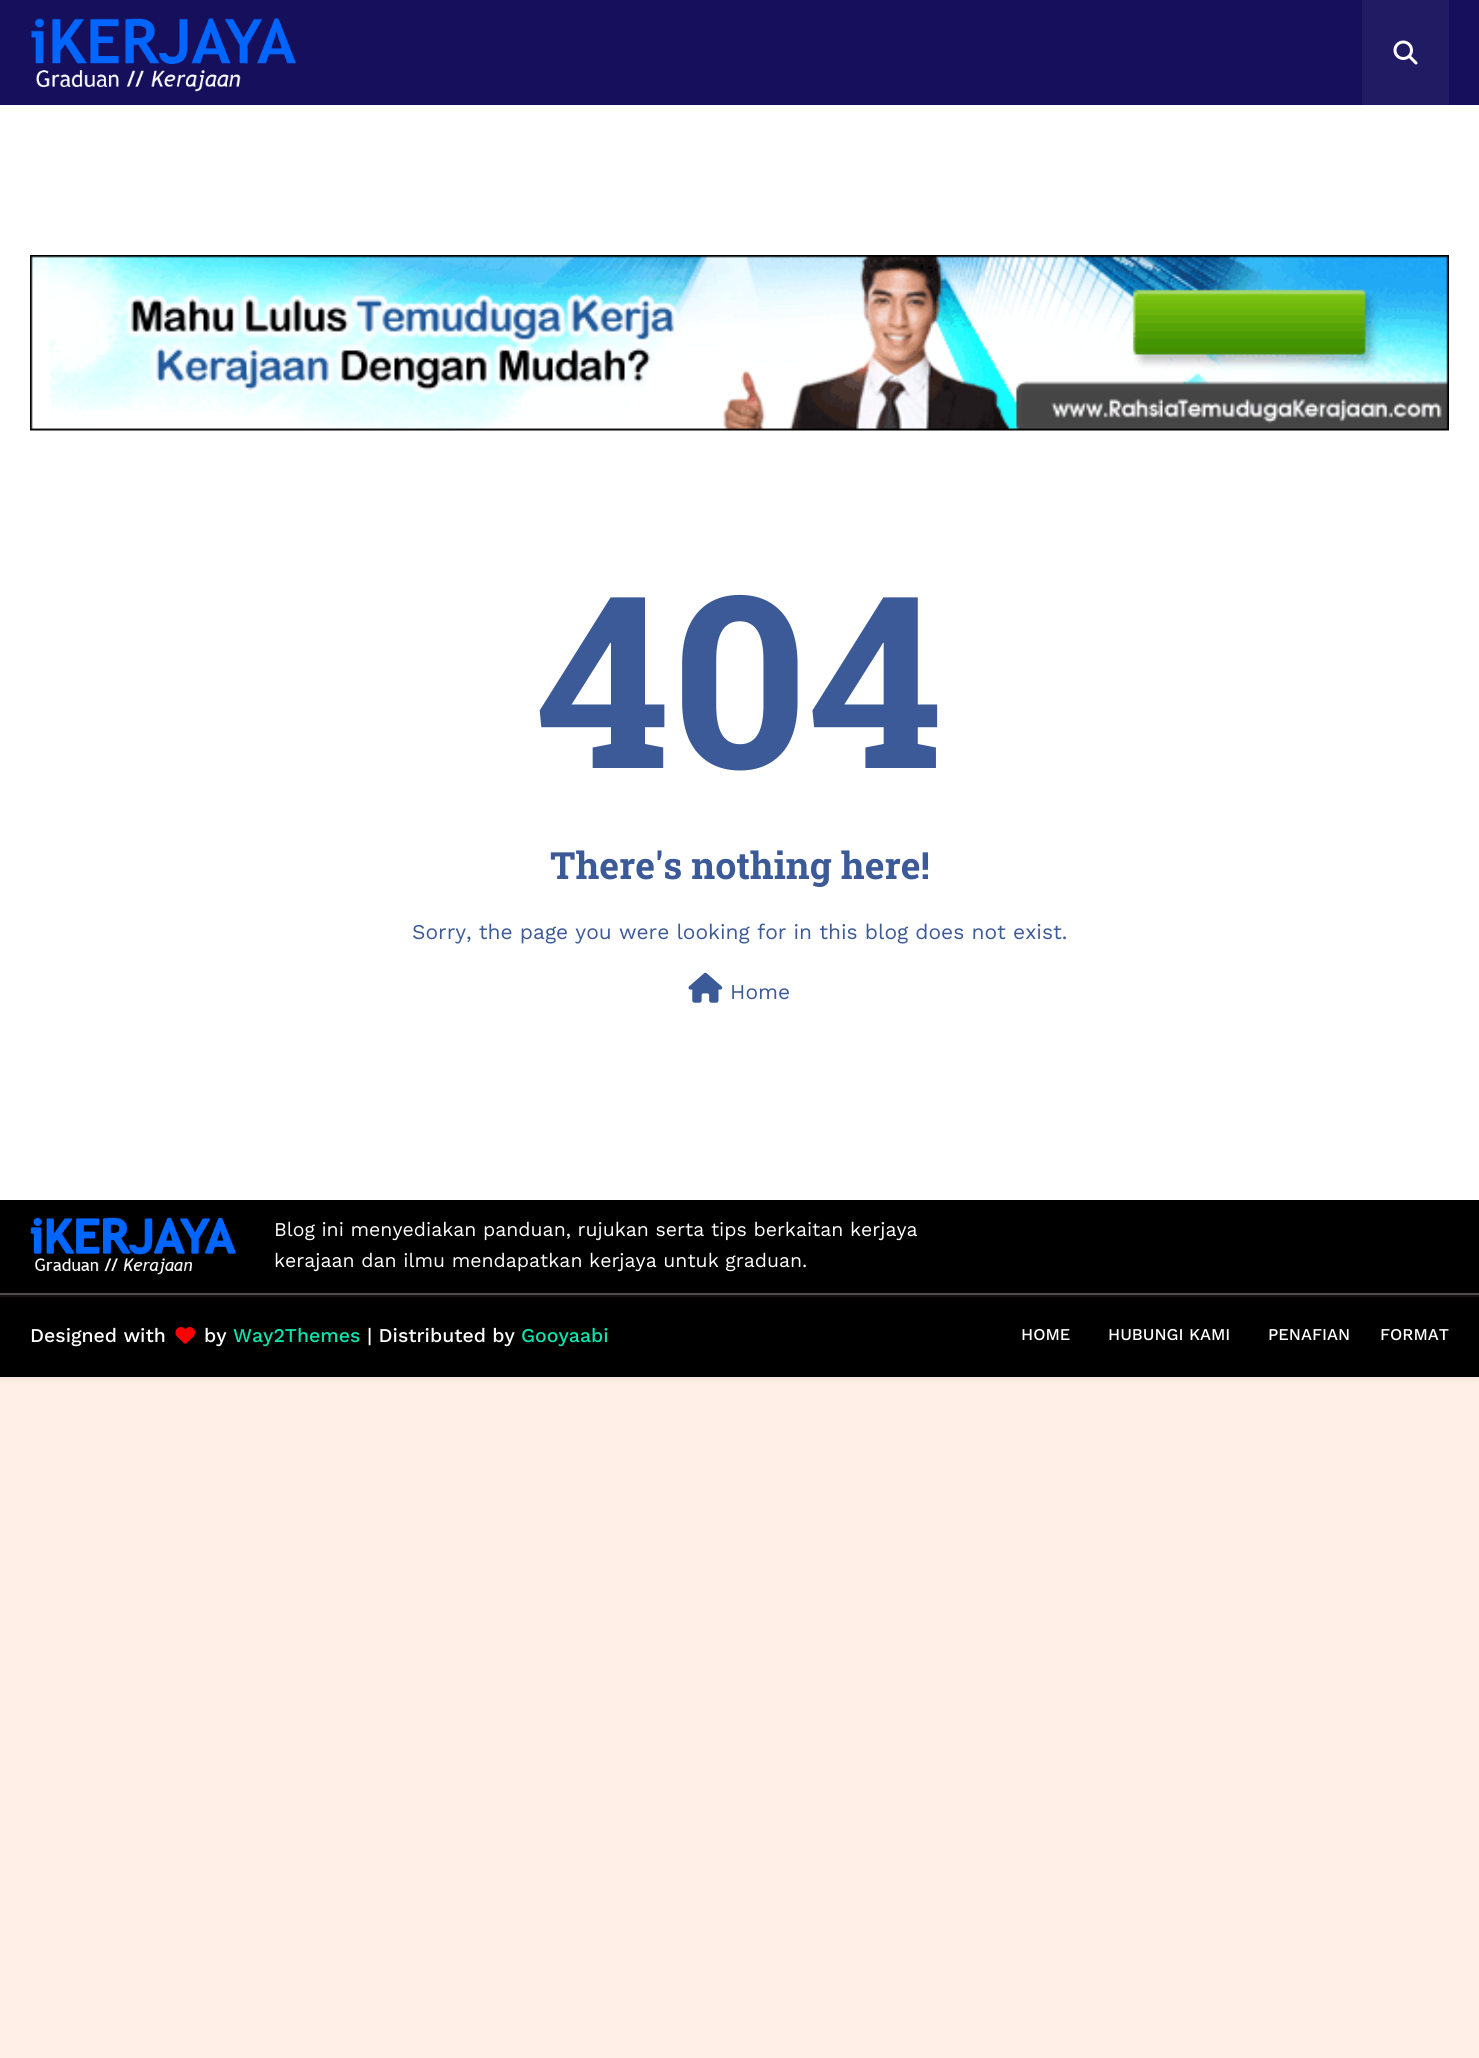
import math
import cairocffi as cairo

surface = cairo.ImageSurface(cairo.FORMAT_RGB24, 1479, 2058)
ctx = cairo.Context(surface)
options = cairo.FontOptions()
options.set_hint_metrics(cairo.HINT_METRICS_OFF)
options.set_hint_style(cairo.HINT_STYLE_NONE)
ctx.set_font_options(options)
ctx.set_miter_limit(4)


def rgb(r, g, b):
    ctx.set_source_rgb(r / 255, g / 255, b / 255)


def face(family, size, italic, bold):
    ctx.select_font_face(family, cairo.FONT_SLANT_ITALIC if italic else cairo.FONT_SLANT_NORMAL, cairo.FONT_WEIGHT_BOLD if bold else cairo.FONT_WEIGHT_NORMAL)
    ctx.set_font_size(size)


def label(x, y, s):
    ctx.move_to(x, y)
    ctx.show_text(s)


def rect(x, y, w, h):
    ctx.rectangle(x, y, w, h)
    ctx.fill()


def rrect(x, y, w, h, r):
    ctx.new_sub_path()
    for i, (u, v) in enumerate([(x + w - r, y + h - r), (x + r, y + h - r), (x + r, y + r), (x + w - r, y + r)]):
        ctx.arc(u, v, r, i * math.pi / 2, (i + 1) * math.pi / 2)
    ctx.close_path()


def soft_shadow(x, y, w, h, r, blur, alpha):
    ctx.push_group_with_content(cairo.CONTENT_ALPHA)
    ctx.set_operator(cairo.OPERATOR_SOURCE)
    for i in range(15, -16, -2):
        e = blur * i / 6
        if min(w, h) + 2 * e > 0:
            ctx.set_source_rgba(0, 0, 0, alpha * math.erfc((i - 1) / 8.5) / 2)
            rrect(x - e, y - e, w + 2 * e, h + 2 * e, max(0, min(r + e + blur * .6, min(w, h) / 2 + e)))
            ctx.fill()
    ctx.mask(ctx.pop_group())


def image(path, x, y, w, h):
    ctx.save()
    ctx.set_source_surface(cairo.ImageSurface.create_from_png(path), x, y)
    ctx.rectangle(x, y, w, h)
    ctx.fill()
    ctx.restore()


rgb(255, 239, 231)
ctx.paint()
rgb(0, 0, 0)
soft_shadow(0, 0, 1479, 1377, 0, 4, 0.1)
rgb(255, 255, 255)
rect(0, 105, 1479, 1095)
rgb(21, 15, 92)
rect(0, 0, 1479, 105)
image('image0.png', 31, 18, 266, 74)
rgb(33, 27, 100)
rect(1362, 0, 87, 105)
image('image1.png', 1393, 40, 25, 25)
image('image2.png', 30, 255, 1419, 176)
face('Roboto Slab', 240, 0, 1)
rgb(60, 90, 152)
label(535, 768, '404')
face('Roboto Slab', 37.5, 0, 1)
label(550, 879, 'There\'s nothing here!')
face('Work Sans', 21, 0, 0)
label(412, 939, 'Sorry, the page you were looking for in this blog does not exist.')
image('image3.png', 688, 972, 35, 31)
label(730, 999, 'Home')
rgb(0, 0, 0)
rect(0, 1200, 1479, 177)
rgb(77, 77, 77)
rect(0, 1293, 1479, 2)
image('image4.png', 30, 1217, 207, 58)
face('Work Sans', 19.5, 0, 0)
rgb(255, 255, 255)
label(274, 1236, 'Blog ini menyediakan panduan, rujukan serta tips berkaitan kerjaya')
label(274, 1267, 'kerajaan dan ilmu mendapatkan kerjaya untuk graduan.')
rgb(24, 14, 13)
rect(0, 1295, 1479, 2)
face('Work Sans Medium', 19.5, 0, 0)
rgb(255, 255, 255)
label(30, 1342, 'Designed with')
image('image5.png', 175, 1327, 20, 17)
label(204, 1342, 'by')
rgb(11, 230, 175)
label(233, 1342, 'Way2Themes')
rgb(255, 255, 255)
label(367, 1342, '| Distributed by')
rgb(11, 230, 175)
label(521, 1342, 'Gooyaabi')
face('Work Sans Medium', 16.5, 0, 0)
rgb(255, 255, 255)
label(1021, 1340, 'HOME')
label(1108, 1340, 'HUBUNGI KAMI')
label(1268, 1340, 'PENAFIAN')
label(1380, 1340, 'FORMAT')
surface.write_to_png('render.png')
